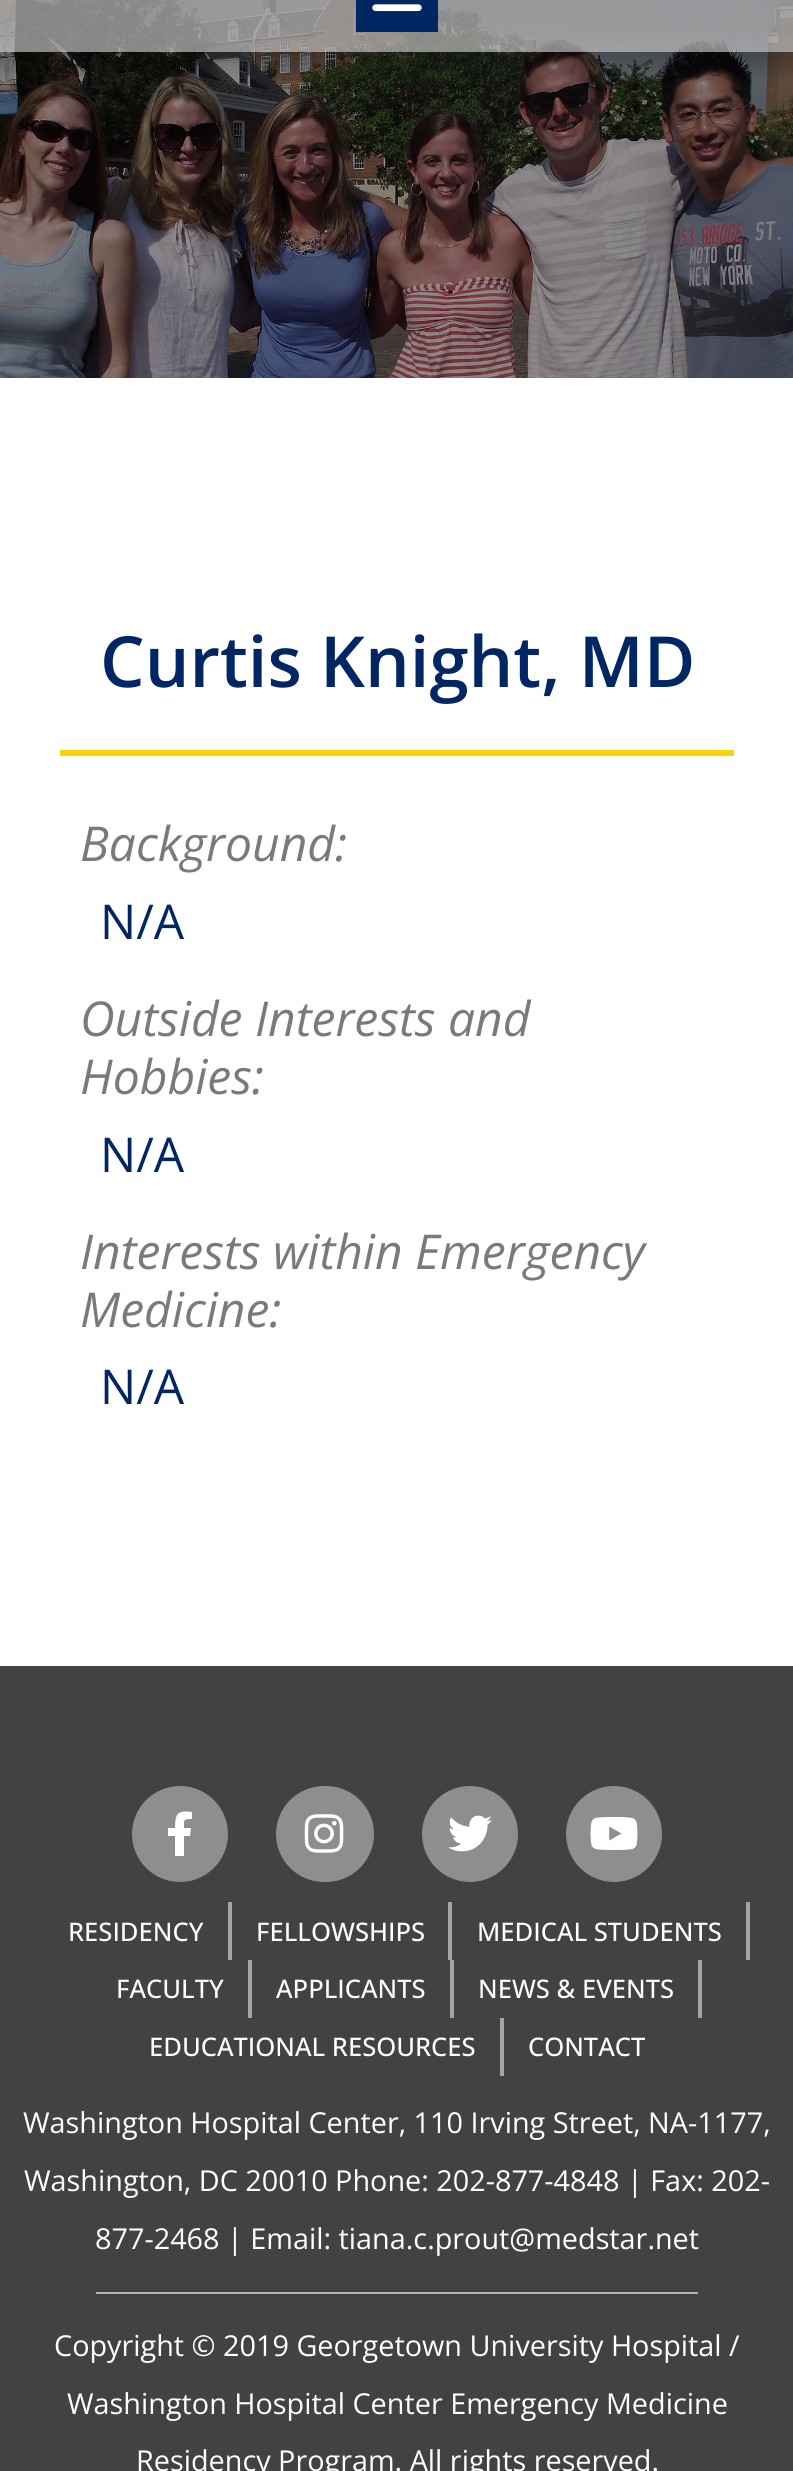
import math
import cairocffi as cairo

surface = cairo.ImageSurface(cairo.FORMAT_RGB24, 793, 2471)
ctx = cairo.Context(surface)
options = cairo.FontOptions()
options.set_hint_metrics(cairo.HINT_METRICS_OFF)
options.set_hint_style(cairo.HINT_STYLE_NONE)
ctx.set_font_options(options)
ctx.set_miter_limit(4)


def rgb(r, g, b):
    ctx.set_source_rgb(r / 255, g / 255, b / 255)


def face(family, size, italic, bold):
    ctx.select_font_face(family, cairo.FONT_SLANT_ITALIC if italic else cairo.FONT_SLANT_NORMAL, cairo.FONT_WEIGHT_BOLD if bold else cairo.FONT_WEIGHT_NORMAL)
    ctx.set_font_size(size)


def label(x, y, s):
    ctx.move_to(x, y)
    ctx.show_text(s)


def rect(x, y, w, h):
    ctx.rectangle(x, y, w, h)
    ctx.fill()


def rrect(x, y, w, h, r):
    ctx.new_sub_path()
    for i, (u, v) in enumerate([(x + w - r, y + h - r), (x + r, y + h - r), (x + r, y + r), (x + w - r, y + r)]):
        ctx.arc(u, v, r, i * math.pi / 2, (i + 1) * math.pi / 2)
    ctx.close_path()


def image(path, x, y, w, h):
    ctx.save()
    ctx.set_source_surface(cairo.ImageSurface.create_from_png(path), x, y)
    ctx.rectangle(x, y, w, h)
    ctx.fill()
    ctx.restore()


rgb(255, 255, 255)
ctx.paint()
image('image0.png', 0, 0, 793, 378)
ctx.set_source_rgba(0.839, 0.839, 0.839, 0.61)
rect(0, 0, 793, 52)
rgb(0, 38, 100)
rect(356, 0, 82, 32)
image('image1.png', 372, 4, 50, 8)
face('Open Sans SemiBold', 70.5, 0, 0)
label(100, 687, 'Curtis Knight, MD')
rgb(252, 210, 10)
rect(60, 750, 674, 6)
face('Open Sans', 48, 1, 0)
rgb(122, 122, 122)
label(80, 861, 'Background:')
face('Open Sans', 48, 0, 0)
rgb(0, 38, 100)
label(100, 939, 'N/A')
face('Open Sans', 48, 1, 0)
rgb(122, 122, 122)
label(80, 1036, 'Outside Interests and')
label(80, 1094, 'Hobbies:')
face('Open Sans', 48, 0, 0)
rgb(0, 38, 100)
label(100, 1172, 'N/A')
face('Open Sans', 48, 1, 0)
rgb(122, 122, 122)
label(80, 1269, 'Interests within Emergency')
label(80, 1327, 'Medicine:')
face('Open Sans', 48, 0, 0)
rgb(0, 38, 100)
label(100, 1404, 'N/A')
rgb(66, 66, 66)
rect(0, 1666, 793, 805)
rgb(142, 142, 142)
ctx.new_path()
ctx.arc(180, 1834, 48, 0, 2 * math.pi)
ctx.fill()
rgb(255, 255, 255)
ctx.new_path()
ctx.move_to(190, 1836)
ctx.line_to(184, 1836)
ctx.line_to(184, 1856)
ctx.line_to(175, 1856)
ctx.line_to(175, 1836)
ctx.line_to(168, 1836)
ctx.line_to(168, 1828)
ctx.line_to(175, 1828)
ctx.curve_to(175, 1814, 177, 1810, 192, 1812)
ctx.line_to(192, 1819)
ctx.curve_to(183, 1819, 184, 1820, 184, 1828)
ctx.line_to(191, 1828)
ctx.close_path()
ctx.fill()
rgb(142, 142, 142)
rrect(276, 1786, 98, 96, 48)
ctx.fill()
image('image2.png', 304, 1814, 40, 39)
ctx.arc(470, 1834, 48, 0, 2 * math.pi)
ctx.fill()
image('image3.png', 448, 1815, 44, 37)
ctx.arc(614, 1834, 48, 0, 2 * math.pi)
ctx.fill()
image('image4.png', 590, 1817, 48, 33)
face('Open Sans Medium', 25.6, 0, 0)
rgb(255, 255, 255)
label(68, 1941, 'RESIDENCY')
rgb(165, 165, 165)
rect(228, 1902, 4, 58)
rgb(255, 255, 255)
label(256, 1941, 'FELLOWSHIPS')
rgb(165, 165, 165)
rect(448, 1902, 4, 58)
rgb(255, 255, 255)
label(477, 1941, 'MEDICAL STUDENTS')
rgb(165, 165, 165)
rect(746, 1902, 4, 58)
rgb(255, 255, 255)
label(116, 1998, 'FACULTY')
rgb(165, 165, 165)
rect(248, 1960, 4, 58)
rgb(255, 255, 255)
label(276, 1998, 'APPLICANTS')
rgb(165, 165, 165)
rect(450, 1960, 4, 58)
rgb(255, 255, 255)
label(478, 1998, 'NEWS & EVENTS')
rgb(165, 165, 165)
rect(698, 1960, 4, 58)
rgb(255, 255, 255)
label(149, 2056, 'EDUCATIONAL RESOURCES')
rgb(165, 165, 165)
rect(500, 2018, 4, 58)
rgb(255, 255, 255)
label(528, 2056, 'CONTACT')
face('Open Sans', 28.8, 0, 0)
label(23, 2133, 'Washington Hospital Center, 110 Irving Street, NA-1177,')
label(24, 2191, 'Washington, DC 20010 Phone: 202-877-4848 | Fax: 202-')
label(95, 2249, '877-2468 | Email: tiana.c.prout@medstar.net')
rgb(179, 179, 179)
rect(96, 2292, 602, 2)
rgb(255, 255, 255)
label(54, 2356, 'Copyright © 2019 Georgetown University Hospital /')
label(67, 2414, 'Washington Hospital Center Emergency Medicine')
label(136, 2471, 'Residency Program. All rights reserved.')
surface.write_to_png('render.png')
